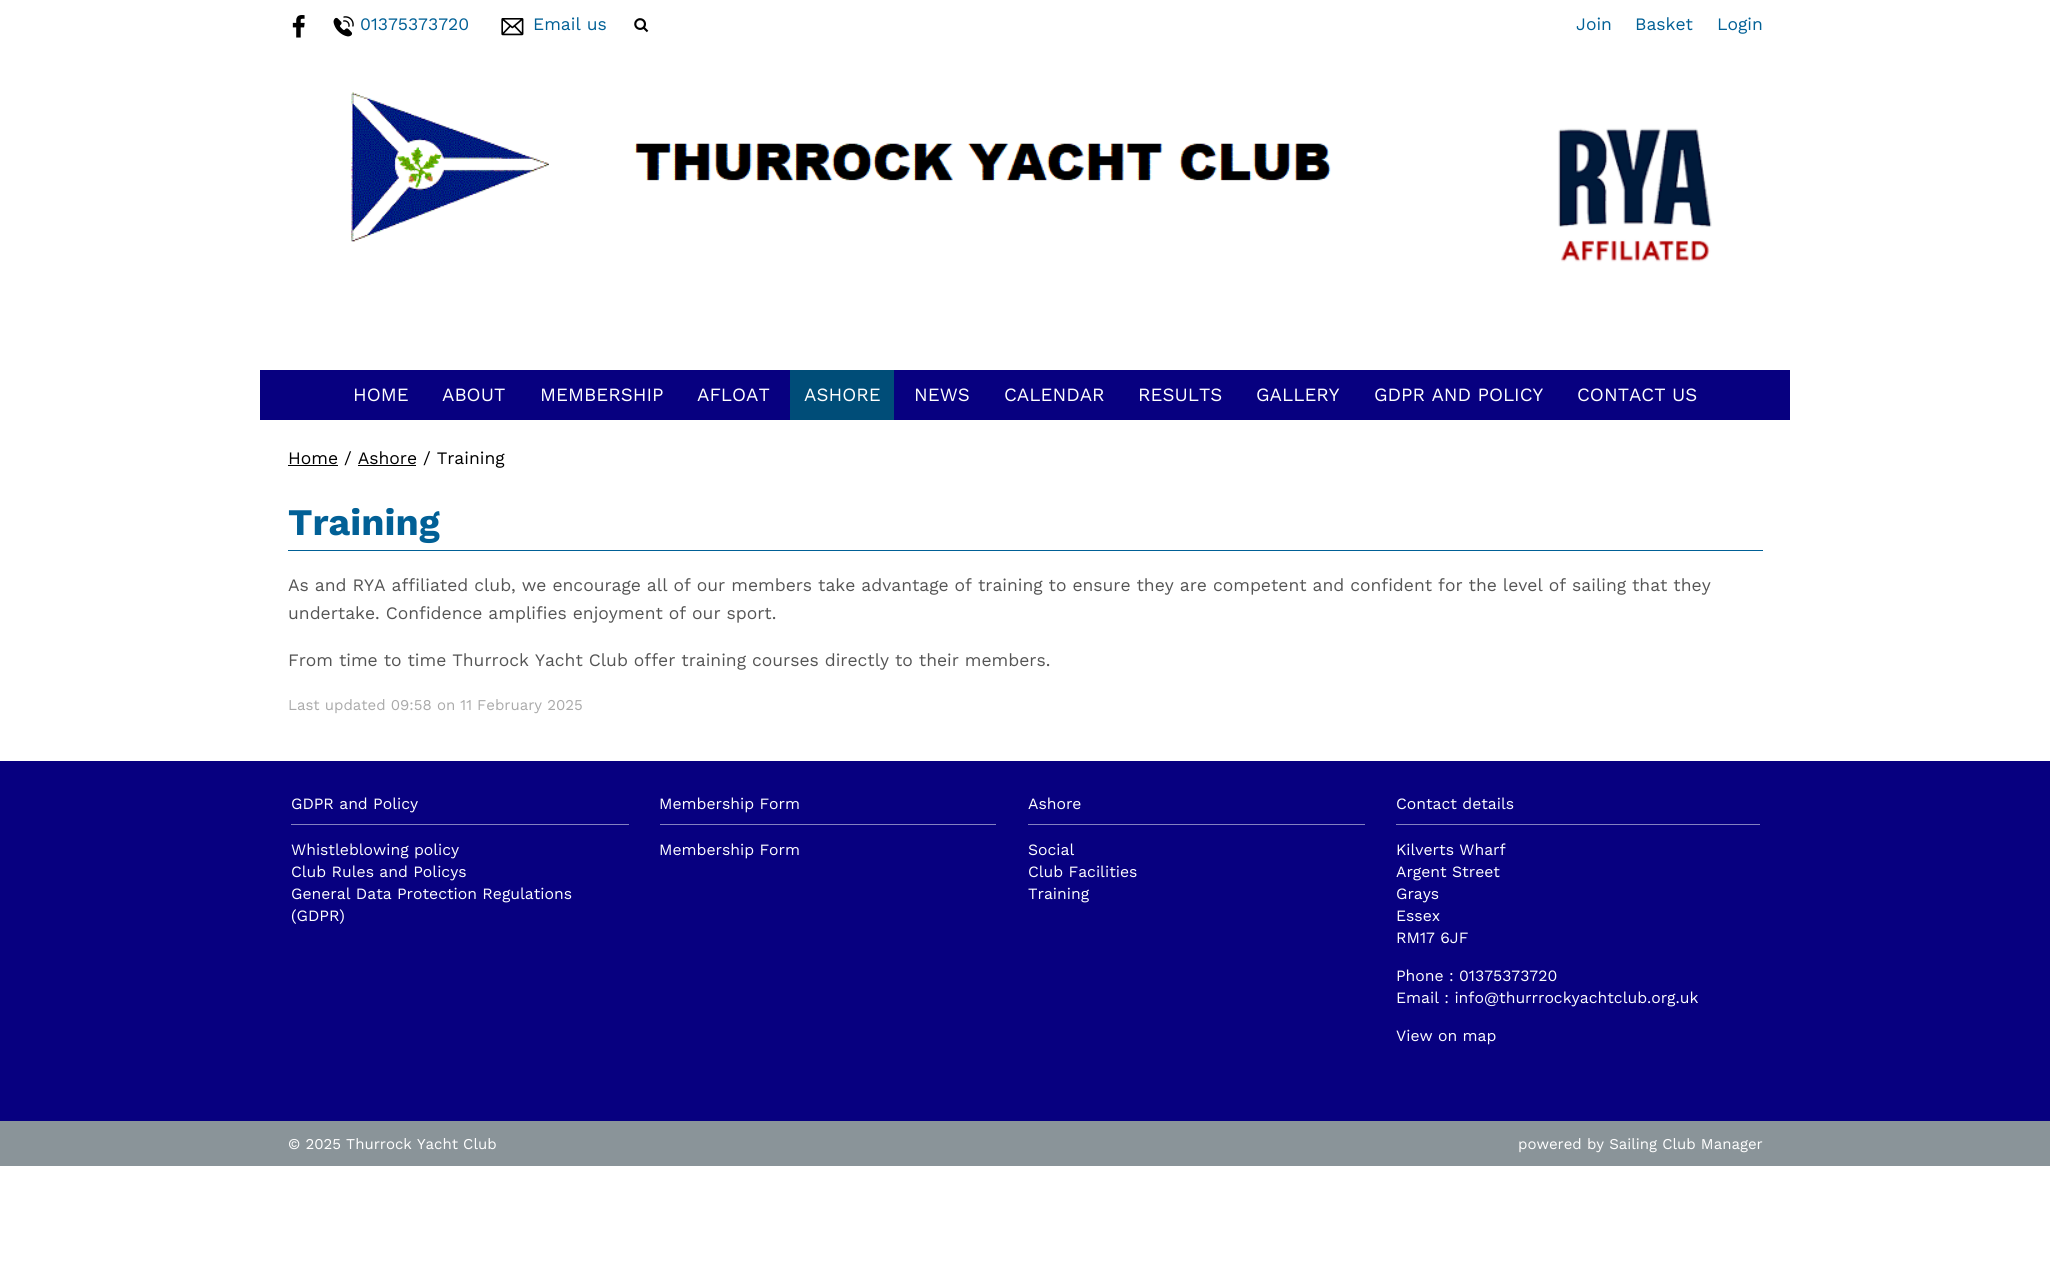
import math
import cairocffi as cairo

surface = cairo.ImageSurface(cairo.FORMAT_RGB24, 2050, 1262)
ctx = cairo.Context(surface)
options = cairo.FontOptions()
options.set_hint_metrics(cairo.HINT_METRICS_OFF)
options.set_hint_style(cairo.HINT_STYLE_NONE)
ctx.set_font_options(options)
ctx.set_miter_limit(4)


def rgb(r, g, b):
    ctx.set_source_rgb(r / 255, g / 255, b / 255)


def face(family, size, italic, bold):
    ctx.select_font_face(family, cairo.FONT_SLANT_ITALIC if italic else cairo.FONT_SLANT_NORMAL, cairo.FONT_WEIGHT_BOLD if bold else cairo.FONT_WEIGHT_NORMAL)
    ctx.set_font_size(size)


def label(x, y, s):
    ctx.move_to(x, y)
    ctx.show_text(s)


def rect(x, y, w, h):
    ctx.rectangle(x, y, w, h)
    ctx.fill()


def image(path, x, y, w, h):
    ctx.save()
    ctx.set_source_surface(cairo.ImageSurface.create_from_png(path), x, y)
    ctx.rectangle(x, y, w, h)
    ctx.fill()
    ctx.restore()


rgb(255, 255, 255)
ctx.paint()
image('image0.png', 292, 15, 13, 23)
image('image1.png', 333, 16, 21, 21)
face('Work Sans', 17.5, 0, 0)
rgb(1, 96, 150)
label(360, 30, '01375373720')
image('image2.png', 501, 18, 23, 18)
label(533, 30, 'Email us')
image('image3.png', 634, 18, 15, 15)
label(1576, 30, 'Join')
label(1635, 30, 'Basket')
label(1717, 30, 'Login')
image('image4.png', 351, 92, 980, 150)
image('image5.png', 1558, 128, 154, 134)
rgb(7, 0, 128)
rect(260, 370, 1530, 50)
face('Work Sans', 18.75, 0, 0)
rgb(255, 255, 255)
label(353, 401, 'HOME')
label(442, 401, 'ABOUT')
label(540, 401, 'MEMBERSHIP')
label(697, 401, 'AFLOAT')
rgb(0, 77, 120)
rect(790, 370, 104, 50)
rgb(255, 255, 255)
label(804, 401, 'ASHORE')
label(914, 401, 'NEWS')
label(1004, 401, 'CALENDAR')
label(1138, 401, 'RESULTS')
label(1256, 401, 'GALLERY')
label(1374, 401, 'GDPR AND POLICY')
label(1577, 401, 'CONTACT US')
rgb(0, 0, 0)
rect(288, 465, 50, 1)
face('Work Sans', 17.5, 0, 0)
label(288, 464, 'Home / Ashore / Training')
rect(358, 465, 58, 1)
rgb(0, 96, 150)
rect(288, 550, 1475, 1)
face('Work Sans', 37.5, 0, 1)
rgb(1, 96, 150)
label(288, 535, 'Training')
face('Work Sans', 17.5, 0, 0)
rgb(85, 85, 85)
label(288, 591, 'As and RYA affiliated club, we encourage all of our members take advantage of training to ensure they are competent and confident for the level of sailing that they')
label(288, 619, 'undertake. Confidence amplifies enjoyment of our sport.')
label(288, 666, 'From time to time Thurrock Yacht Club offer training courses directly to their members.')
face('Work Sans', 15, 0, 0)
rgb(170, 170, 170)
label(288, 710, 'Last updated 09:58 on 11 February 2025')
rgb(7, 0, 128)
rect(0, 761, 2050, 360)
rgb(131, 128, 192)
rect(291, 824, 338, 1)
face('Work Sans', 15.75, 0, 0)
rgb(255, 255, 255)
label(291, 809, 'GDPR and Policy')
label(291, 855, 'Whistleblowing policy')
label(291, 877, 'Club Rules and Policys')
label(291, 899, 'General Data Protection Regulations')
label(291, 921, '(GDPR)')
rgb(131, 128, 192)
rect(660, 824, 336, 1)
rgb(255, 255, 255)
label(659, 809, 'Membership Form')
label(659, 855, 'Membership Form')
rgb(131, 128, 192)
rect(1028, 824, 337, 1)
rgb(255, 255, 255)
label(1028, 809, 'Ashore')
label(1028, 855, 'Social')
label(1028, 877, 'Club Facilities')
label(1028, 899, 'Training')
rgb(131, 128, 192)
rect(1396, 824, 364, 1)
rgb(255, 255, 255)
label(1396, 809, 'Contact details')
label(1396, 855, 'Kilverts Wharf')
label(1396, 877, 'Argent Street')
label(1396, 899, 'Grays')
label(1396, 921, 'Essex')
label(1396, 943, 'RM17 6JF')
label(1396, 981, 'Phone : 01375373720')
label(1396, 1003, 'Email : info@thurrrockyachtclub.org.uk')
label(1396, 1041, 'View on map')
rgb(138, 148, 153)
rect(0, 1121, 2050, 45)
face('Work Sans', 15, 0, 0)
rgb(255, 255, 255)
label(288, 1149, '© 2025 Thurrock Yacht Club')
label(1518, 1149, 'powered by Sailing Club Manager')
surface.write_to_png('render.png')
